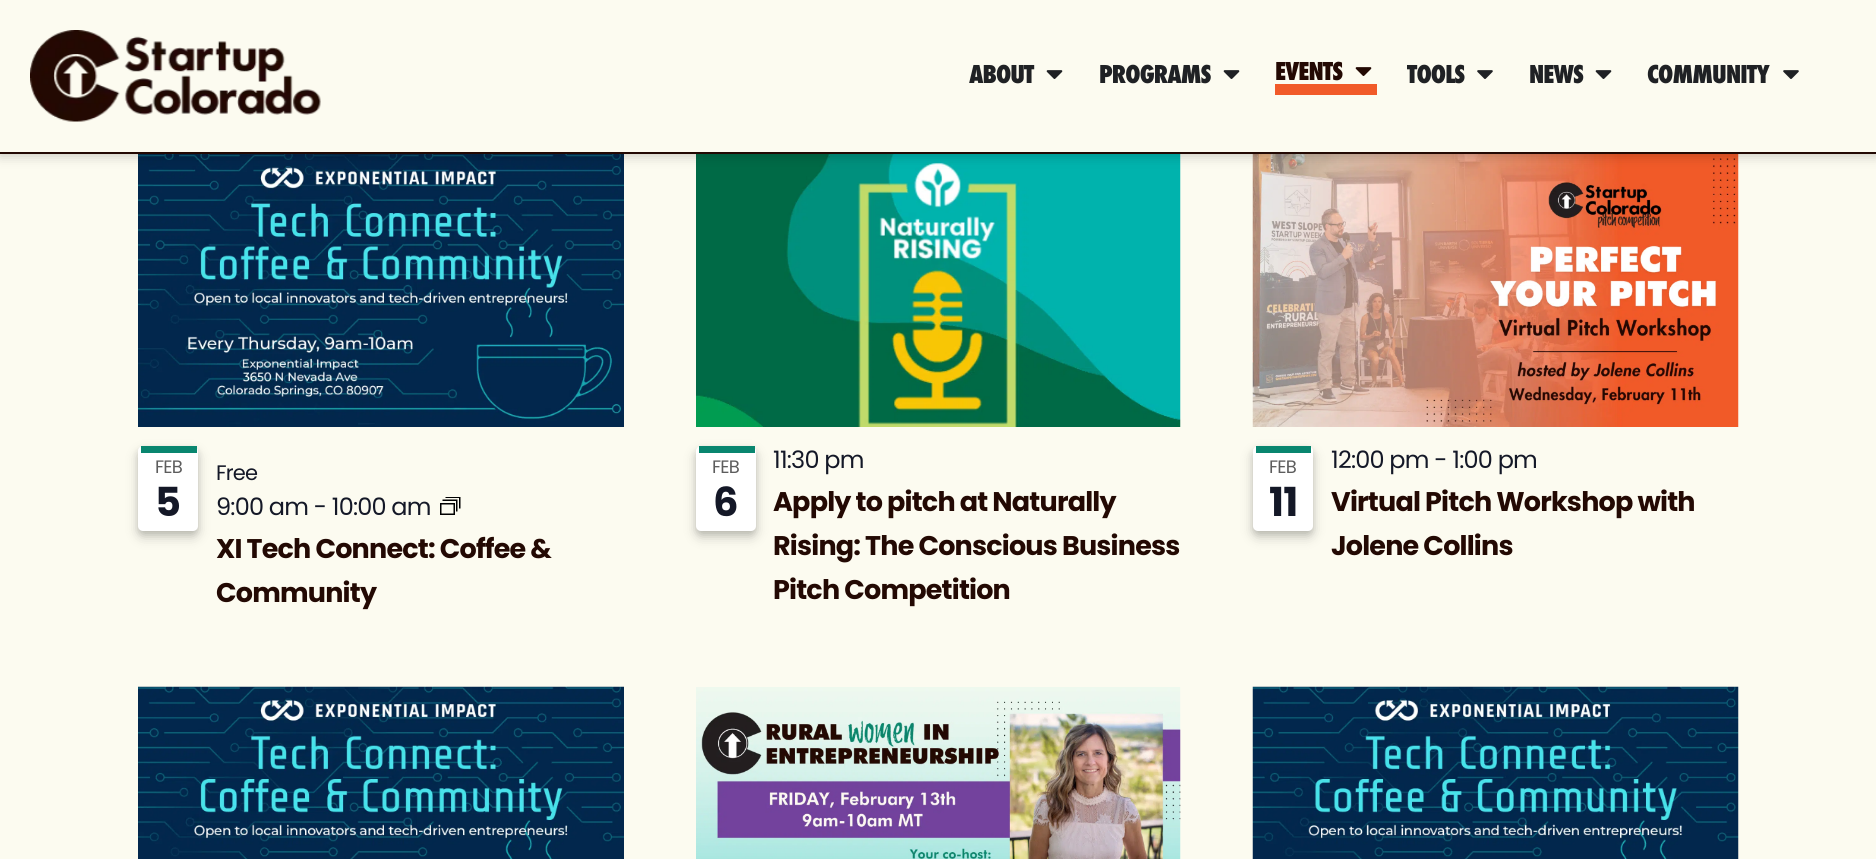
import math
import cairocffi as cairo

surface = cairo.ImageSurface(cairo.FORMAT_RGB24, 1876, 859)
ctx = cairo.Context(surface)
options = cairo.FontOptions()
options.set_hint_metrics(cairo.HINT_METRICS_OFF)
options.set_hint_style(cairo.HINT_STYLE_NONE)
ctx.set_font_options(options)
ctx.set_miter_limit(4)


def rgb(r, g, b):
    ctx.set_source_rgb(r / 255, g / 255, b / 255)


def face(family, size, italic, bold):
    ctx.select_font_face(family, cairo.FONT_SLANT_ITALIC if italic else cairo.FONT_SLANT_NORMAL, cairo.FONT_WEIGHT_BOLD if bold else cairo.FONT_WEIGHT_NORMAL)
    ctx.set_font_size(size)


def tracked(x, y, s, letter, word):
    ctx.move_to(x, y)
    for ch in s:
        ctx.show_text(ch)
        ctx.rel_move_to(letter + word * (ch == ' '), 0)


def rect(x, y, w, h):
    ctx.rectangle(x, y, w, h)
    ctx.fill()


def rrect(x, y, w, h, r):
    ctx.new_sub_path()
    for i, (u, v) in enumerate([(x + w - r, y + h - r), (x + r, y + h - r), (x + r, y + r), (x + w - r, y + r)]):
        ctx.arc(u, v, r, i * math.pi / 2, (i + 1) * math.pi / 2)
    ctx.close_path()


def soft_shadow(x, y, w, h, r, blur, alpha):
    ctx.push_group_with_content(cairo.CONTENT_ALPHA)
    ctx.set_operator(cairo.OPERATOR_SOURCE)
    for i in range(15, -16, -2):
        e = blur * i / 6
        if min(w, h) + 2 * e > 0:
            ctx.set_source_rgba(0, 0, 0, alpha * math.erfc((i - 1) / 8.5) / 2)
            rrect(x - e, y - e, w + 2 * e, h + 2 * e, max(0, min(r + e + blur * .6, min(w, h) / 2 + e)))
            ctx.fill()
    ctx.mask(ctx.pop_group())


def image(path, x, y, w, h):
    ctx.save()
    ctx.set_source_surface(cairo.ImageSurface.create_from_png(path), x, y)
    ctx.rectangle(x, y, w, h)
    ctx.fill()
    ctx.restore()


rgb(252, 251, 240)
ctx.paint()
image('image4.png', 138, 154, 486, 273)
image('image6.png', 696, 154, 485, 273)
image('image7.png', 1252, 154, 487, 273)
rgb(0, 0, 0)
soft_shadow(0, 3, 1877, 153, 0, 6, 0.2)
rgb(252, 251, 240)
rect(0, 0, 1876, 152)
rgb(35, 9, 3)
rect(0, 152, 1876, 2)
image('image0.png', 30, 30, 291, 92)
face('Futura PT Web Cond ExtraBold', 27, 0, 0)
rgb(31, 33, 36)
tracked(969, 83, 'ABOUT', -0.9, 0)
image('image1.png', 1046, 70, 17, 9)
tracked(1099, 83, 'PROGRAMS', -0.9, 0)
image('image1.png', 1223, 70, 17, 9)
rgb(241, 90, 41)
rect(1275, 84, 102, 11)
rgb(35, 9, 3)
tracked(1275, 80, 'EVENTS', -0.9, 0)
image('image2.png', 1355, 67, 17, 9)
rgb(31, 33, 36)
tracked(1407, 83, 'TOOLS', -0.9, 0)
image('image3.png', 1477, 70, 16, 9)
tracked(1529, 83, 'NEWS', -0.9, 0)
image('image1.png', 1595, 70, 17, 9)
tracked(1647, 83, 'COMMUNITY', -0.9, 0)
image('image3.png', 1783, 70, 16, 9)
rgb(0, 0, 0)
soft_shadow(138, 452, 60, 85, 5, 6, 0.2)
soft_shadow(138, 449, 60, 85, 5, 3, 0.1)
rgb(255, 255, 255)
rrect(138, 446, 60, 85, 5)
ctx.fill()
rgb(9, 134, 111)
rect(141, 446, 56, 7)
face('Poppins', 18, 0, 0)
rgb(93, 93, 93)
tracked(155, 473, 'FEB', -0.8, 0)
face('Poppins', 40, 0, 1)
rgb(20, 24, 39)
tracked(155, 516, '5', -0.8, 0)
face('Poppins', 21, 0, 0)
tracked(216, 480, 'Free', -0.8, 0)
face('Poppins', 24, 0, 0)
tracked(216, 515, '9:00 am - 10:00 am', -0.8, 0)
image('image5.png', 440, 497, 21, 18)
face('Poppins', 27, 0, 1)
rgb(35, 9, 3)
tracked(216, 558, 'XI Tech Connect: Coffee &', -0.8, 0)
tracked(216, 602, 'Community', -0.8, 0)
rgb(0, 0, 0)
soft_shadow(696, 452, 60, 85, 5, 6, 0.2)
soft_shadow(696, 449, 60, 85, 5, 3, 0.1)
rgb(255, 255, 255)
rrect(696, 446, 60, 85, 5)
ctx.fill()
rgb(9, 134, 111)
rect(699, 446, 56, 7)
face('Poppins', 18, 0, 0)
rgb(93, 93, 93)
tracked(712, 473, 'FEB', -0.8, 0)
face('Poppins', 40, 0, 1)
rgb(20, 24, 39)
tracked(713, 516, '6', -0.8, 0)
face('Poppins', 24, 0, 0)
tracked(773, 468, '11:30 pm', -0.8, 0)
face('Poppins', 27, 0, 1)
rgb(35, 9, 3)
tracked(773, 511, 'Apply to pitch at Naturally', -0.8, 0)
tracked(773, 555, 'Rising: The Conscious Business', -0.8, 0)
tracked(773, 599, 'Pitch Competition', -0.8, 0)
rgb(0, 0, 0)
soft_shadow(1253, 452, 60, 85, 5, 6, 0.2)
soft_shadow(1253, 449, 60, 85, 5, 3, 0.1)
rgb(255, 255, 255)
rrect(1253, 446, 60, 85, 5)
ctx.fill()
rgb(9, 134, 111)
rect(1256, 446, 55, 7)
face('Poppins', 18, 0, 0)
rgb(93, 93, 93)
tracked(1269, 473, 'FEB', -0.8, 0)
face('Poppins', 40, 0, 1)
rgb(20, 24, 39)
tracked(1269, 516, '11', -0.8, 0)
face('Poppins', 24, 0, 0)
tracked(1331, 468, '12:00 pm - 1:00 pm', -0.8, 0)
face('Poppins', 27, 0, 1)
rgb(35, 9, 3)
tracked(1331, 511, 'Virtual Pitch Workshop with', -0.8, 0)
tracked(1331, 555, 'Jolene Collins', -0.8, 0)
image('image8.png', 138, 686, 486, 173)
image('image9.png', 696, 687, 485, 172)
image('image10.png', 1252, 686, 487, 173)
surface.write_to_png('render.png')
